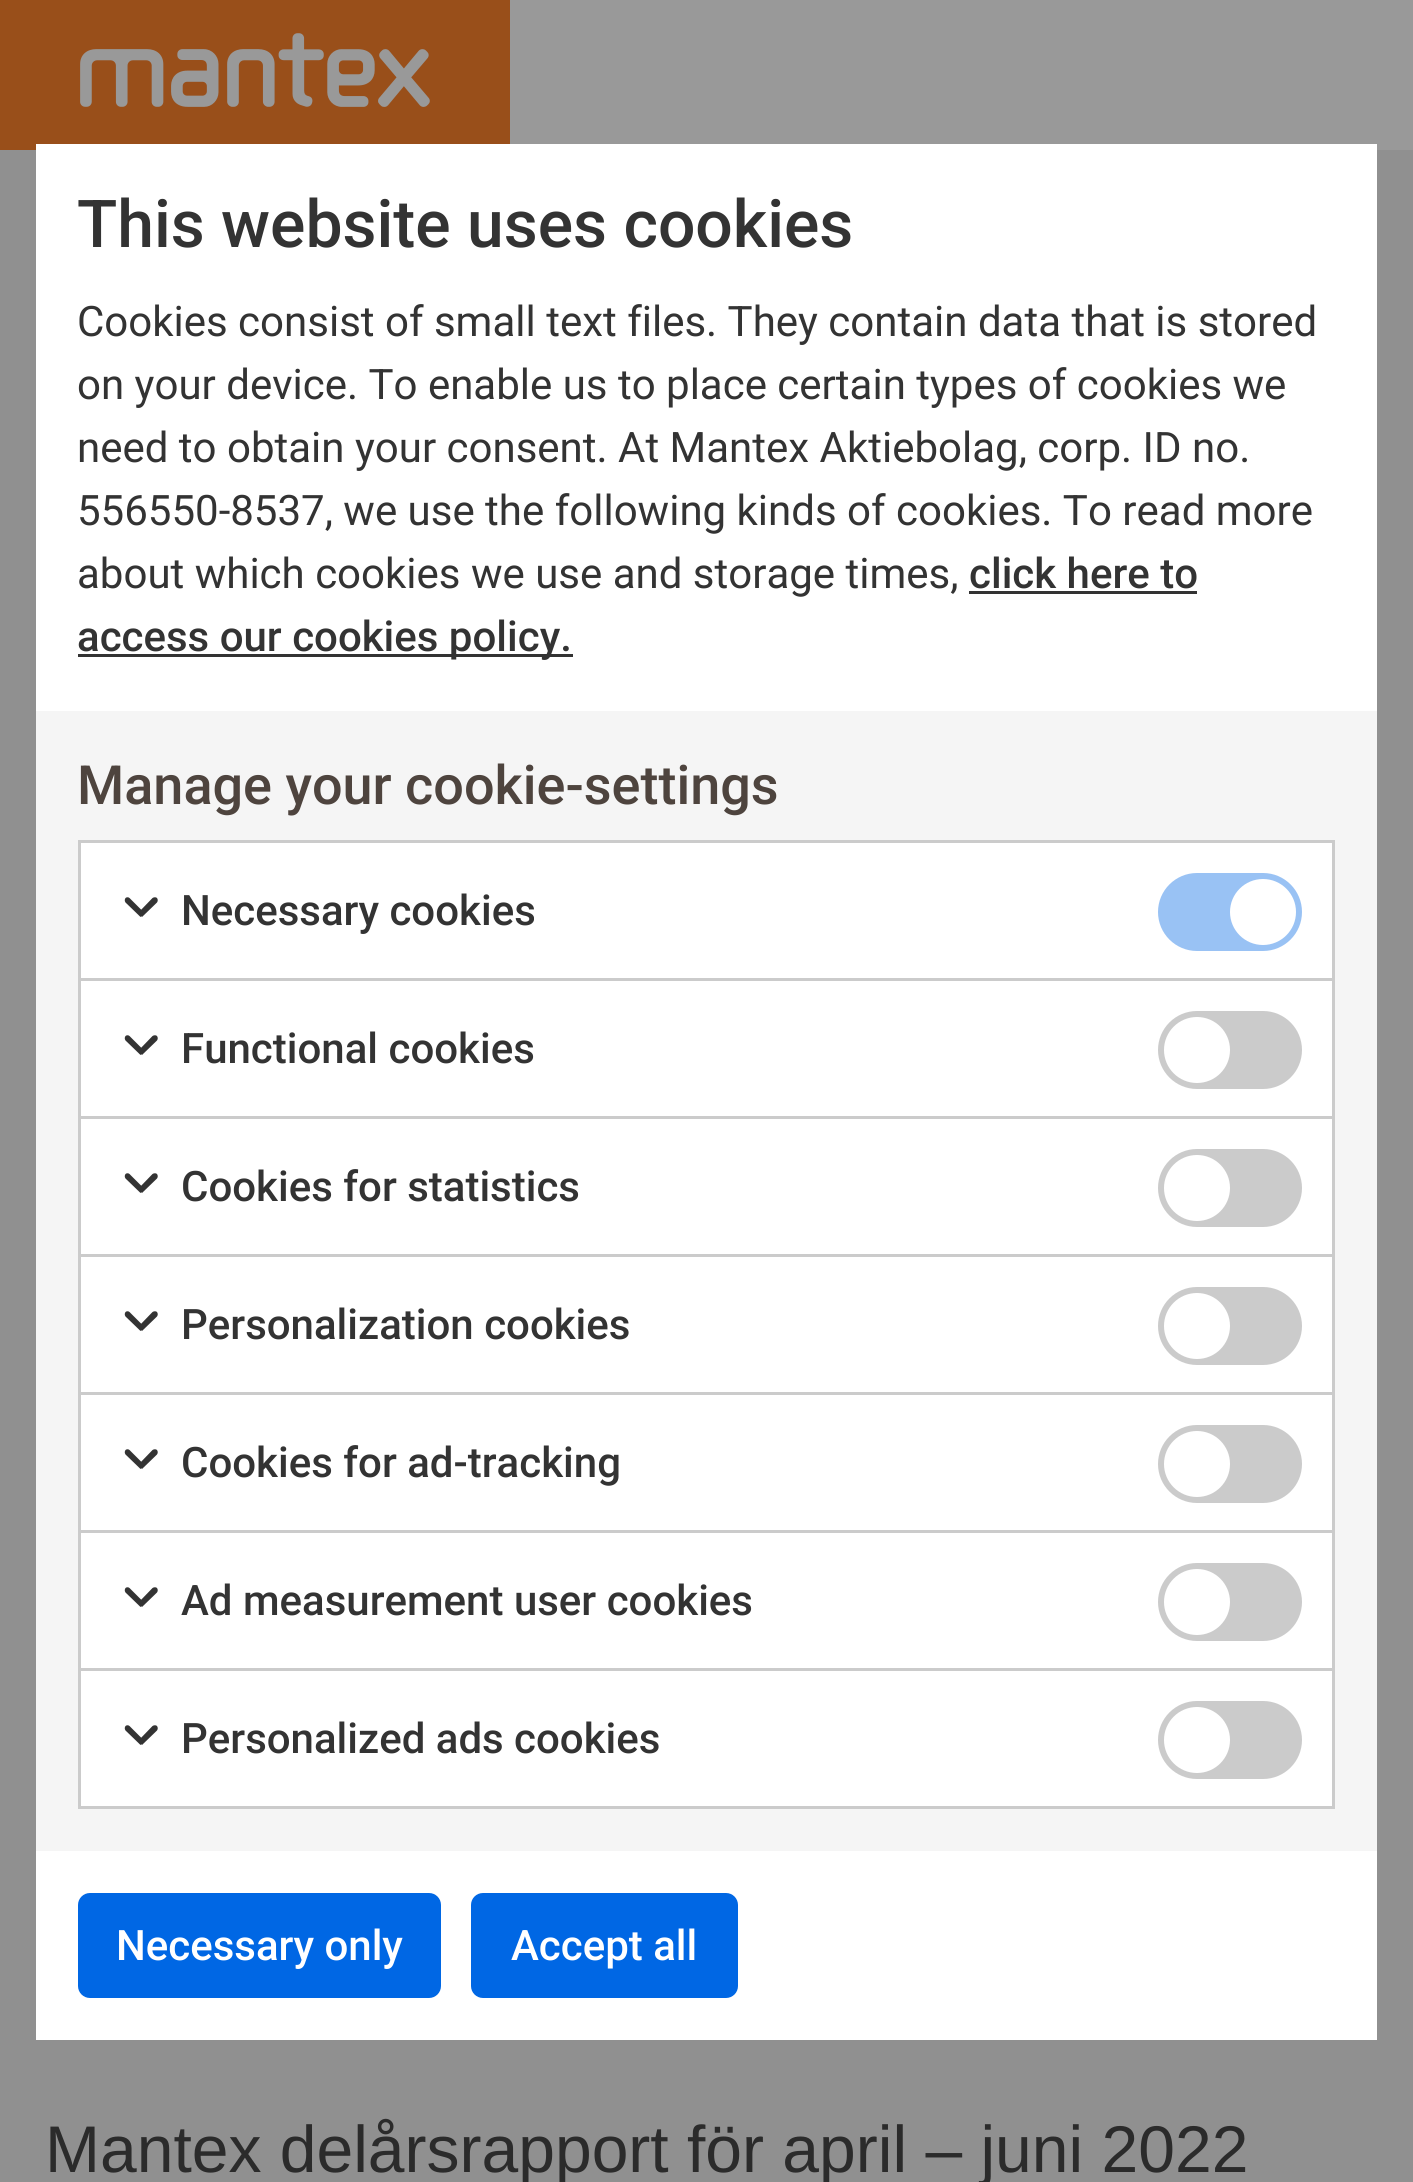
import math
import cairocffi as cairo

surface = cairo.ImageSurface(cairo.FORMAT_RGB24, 1413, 2182)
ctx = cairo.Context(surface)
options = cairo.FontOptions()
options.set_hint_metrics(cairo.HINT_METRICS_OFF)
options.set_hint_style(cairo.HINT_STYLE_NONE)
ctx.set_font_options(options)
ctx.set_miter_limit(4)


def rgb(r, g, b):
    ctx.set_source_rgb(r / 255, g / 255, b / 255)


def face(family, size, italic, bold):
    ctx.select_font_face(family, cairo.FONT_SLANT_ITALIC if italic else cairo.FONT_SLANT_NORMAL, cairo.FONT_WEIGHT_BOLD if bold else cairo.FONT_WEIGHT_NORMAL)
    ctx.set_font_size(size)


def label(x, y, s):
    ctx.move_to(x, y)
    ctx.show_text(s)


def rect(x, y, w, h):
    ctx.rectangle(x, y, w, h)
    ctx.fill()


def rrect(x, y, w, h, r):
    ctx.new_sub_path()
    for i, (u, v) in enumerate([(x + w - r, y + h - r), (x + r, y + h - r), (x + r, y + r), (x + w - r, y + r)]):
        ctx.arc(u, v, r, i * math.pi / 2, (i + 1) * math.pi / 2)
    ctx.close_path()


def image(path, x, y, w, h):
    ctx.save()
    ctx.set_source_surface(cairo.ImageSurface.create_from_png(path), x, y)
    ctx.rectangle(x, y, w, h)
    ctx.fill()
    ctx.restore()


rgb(144, 144, 144)
ctx.paint()
rgb(153, 153, 153)
rect(510, 0, 903, 150)
rgb(153, 79, 26)
rect(0, 0, 510, 150)
image('image0.png', 80, 33, 350, 74)
rgb(255, 255, 255)
rect(36, 144, 1341, 1896)
face('Roboto Medium', 66, 0, 0)
rgb(51, 51, 51)
label(77, 247, 'This website uses cookies')
face('Roboto', 42, 0, 0)
label(77, 336, 'Cookies consist of small text files. They contain data that is stored')
label(77, 399, 'on your device. To enable us to place certain types of cookies we')
label(77, 462, 'need to obtain your consent. At Mantex Aktiebolag, corp. ID no.')
label(77, 525, '556550-8537, we use the following kinds of cookies. To read more')
label(77, 588, 'about which cookies we use and storage times,')
face('Roboto Medium', 42, 0, 0)
label(969, 588, 'click here to')
rect(969, 591, 228, 3)
rect(78, 654, 495, 3)
label(77, 651, 'access our cookies policy.')
rgb(245, 245, 245)
rect(36, 711, 1341, 1140)
face('Roboto Medium', 54, 0, 0)
rgb(78, 68, 62)
label(77, 804, 'Manage your cookie-settings')
rgb(255, 255, 255)
ctx.rectangle(79.5, 841.5, 1254, 138)
ctx.fill_preserve()
rgb(203, 203, 203)
ctx.set_line_width(3)
ctx.stroke()
rgb(51, 51, 51)
ctx.new_path()
ctx.move_to(125.5, 898)
ctx.curve_to(126.5, 897, 128.5, 897, 129.5, 898)
ctx.line_to(144.5, 913)
ctx.line_to(140.5, 917)
ctx.line_to(125.5, 902.5)
ctx.curve_to(124.5, 901, 124.5, 899.5, 125.5, 898)
ctx.close_path()
ctx.fill()
ctx.new_path()
ctx.move_to(157, 898)
ctx.curve_to(158, 899.5, 158, 901, 157, 902.5)
ctx.line_to(142, 917)
ctx.line_to(138, 913)
ctx.line_to(152.5, 898)
ctx.curve_to(154, 897, 156, 897, 157, 898)
ctx.close_path()
ctx.fill()
face('Roboto Medium', 42, 0, 0)
label(181, 925, 'Necessary cookies')
rgb(153, 194, 244)
rrect(1158, 873, 144, 78, 39)
ctx.fill()
rgb(255, 255, 255)
ctx.arc(1263, 912, 33, 0, 2 * math.pi)
ctx.fill()
rect(81, 981, 1251, 135)
rgb(203, 203, 203)
rect(1332, 981, 3, 828)
rect(78, 1116, 1257, 3)
rect(78, 981, 3, 138)
rgb(51, 51, 51)
ctx.new_path()
ctx.move_to(125.5, 1036)
ctx.curve_to(126.5, 1035, 128.5, 1035, 129.5, 1036)
ctx.line_to(144.5, 1051)
ctx.line_to(140.5, 1055)
ctx.line_to(125.5, 1040.5)
ctx.curve_to(124.5, 1039, 124.5, 1037.5, 125.5, 1036)
ctx.close_path()
ctx.fill()
ctx.new_path()
ctx.move_to(157, 1036)
ctx.curve_to(158, 1037.5, 158, 1039, 157, 1040.5)
ctx.line_to(142, 1055)
ctx.line_to(138, 1051)
ctx.line_to(152.5, 1036)
ctx.curve_to(154, 1035, 156, 1035, 157, 1036)
ctx.close_path()
ctx.fill()
label(181, 1063, 'Functional cookies')
rgb(203, 203, 203)
rrect(1158, 1011, 144, 78, 39)
ctx.fill()
rgb(255, 255, 255)
ctx.arc(1197, 1050, 33, 0, 2 * math.pi)
ctx.fill()
rect(81, 1119, 1251, 135)
rgb(203, 203, 203)
rect(78, 1254, 1257, 3)
rect(78, 1119, 3, 138)
rgb(51, 51, 51)
ctx.new_path()
ctx.move_to(125.5, 1174)
ctx.curve_to(126.5, 1173, 128.5, 1173, 129.5, 1174)
ctx.line_to(144.5, 1189)
ctx.line_to(140.5, 1193)
ctx.line_to(125.5, 1178.5)
ctx.curve_to(124.5, 1177, 124.5, 1175.5, 125.5, 1174)
ctx.close_path()
ctx.fill()
ctx.new_path()
ctx.move_to(157, 1174)
ctx.curve_to(158, 1175.5, 158, 1177, 157, 1178.5)
ctx.line_to(142, 1193)
ctx.line_to(138, 1189)
ctx.line_to(152.5, 1174)
ctx.curve_to(154, 1173, 156, 1173, 157, 1174)
ctx.close_path()
ctx.fill()
label(181, 1201, 'Cookies for statistics')
rgb(203, 203, 203)
rrect(1158, 1149, 144, 78, 39)
ctx.fill()
rgb(255, 255, 255)
ctx.arc(1197, 1188, 33, 0, 2 * math.pi)
ctx.fill()
rect(81, 1257, 1251, 135)
rgb(203, 203, 203)
rect(78, 1392, 1257, 3)
rect(78, 1257, 3, 138)
rgb(51, 51, 51)
ctx.new_path()
ctx.move_to(125.5, 1312)
ctx.curve_to(126.5, 1311, 128.5, 1311, 129.5, 1312)
ctx.line_to(144.5, 1327)
ctx.line_to(140.5, 1331)
ctx.line_to(125.5, 1316.5)
ctx.curve_to(124.5, 1315, 124.5, 1313.5, 125.5, 1312)
ctx.close_path()
ctx.fill()
ctx.new_path()
ctx.move_to(157, 1312)
ctx.curve_to(158, 1313.5, 158, 1315, 157, 1316.5)
ctx.line_to(142, 1331)
ctx.line_to(138, 1327)
ctx.line_to(152.5, 1312)
ctx.curve_to(154, 1311, 156, 1311, 157, 1312)
ctx.close_path()
ctx.fill()
label(181, 1339, 'Personalization cookies')
rgb(203, 203, 203)
rrect(1158, 1287, 144, 78, 39)
ctx.fill()
rgb(255, 255, 255)
ctx.arc(1197, 1326, 33, 0, 2 * math.pi)
ctx.fill()
rect(81, 1395, 1251, 135)
rgb(203, 203, 203)
rect(78, 1530, 1257, 3)
rect(78, 1395, 3, 138)
rgb(51, 51, 51)
ctx.new_path()
ctx.move_to(125.5, 1450)
ctx.curve_to(126.5, 1449, 128.5, 1449, 129.5, 1450)
ctx.line_to(144.5, 1465)
ctx.line_to(140.5, 1469)
ctx.line_to(125.5, 1454.5)
ctx.curve_to(124.5, 1453, 124.5, 1451.5, 125.5, 1450)
ctx.close_path()
ctx.fill()
ctx.new_path()
ctx.move_to(157, 1450)
ctx.curve_to(158, 1451.5, 158, 1453, 157, 1454.5)
ctx.line_to(142, 1469)
ctx.line_to(138, 1465)
ctx.line_to(152.5, 1450)
ctx.curve_to(154, 1449, 156, 1449, 157, 1450)
ctx.close_path()
ctx.fill()
label(181, 1477, 'Cookies for ad-tracking')
rgb(203, 203, 203)
rrect(1158, 1425, 144, 78, 39)
ctx.fill()
rgb(255, 255, 255)
ctx.arc(1197, 1464, 33, 0, 2 * math.pi)
ctx.fill()
rect(81, 1533, 1251, 135)
rgb(203, 203, 203)
rect(78, 1668, 1257, 3)
rect(78, 1533, 3, 138)
rgb(51, 51, 51)
ctx.new_path()
ctx.move_to(125.5, 1588)
ctx.curve_to(126.5, 1587, 128.5, 1587, 129.5, 1588)
ctx.line_to(144.5, 1603)
ctx.line_to(140.5, 1607)
ctx.line_to(125.5, 1592.5)
ctx.curve_to(124.5, 1591, 124.5, 1589.5, 125.5, 1588)
ctx.close_path()
ctx.fill()
ctx.new_path()
ctx.move_to(157, 1588)
ctx.curve_to(158, 1589.5, 158, 1591, 157, 1592.5)
ctx.line_to(142, 1607)
ctx.line_to(138, 1603)
ctx.line_to(152.5, 1588)
ctx.curve_to(154, 1587, 156, 1587, 157, 1588)
ctx.close_path()
ctx.fill()
label(181, 1615, 'Ad measurement user cookies')
rgb(203, 203, 203)
rrect(1158, 1563, 144, 78, 39)
ctx.fill()
rgb(255, 255, 255)
ctx.arc(1197, 1602, 33, 0, 2 * math.pi)
ctx.fill()
rect(81, 1671, 1251, 135)
rgb(203, 203, 203)
rect(78, 1806, 1257, 3)
rect(78, 1671, 3, 138)
rgb(51, 51, 51)
ctx.new_path()
ctx.move_to(125.5, 1726)
ctx.curve_to(126.5, 1725, 128.5, 1725, 129.5, 1726)
ctx.line_to(144.5, 1741)
ctx.line_to(140.5, 1745)
ctx.line_to(125.5, 1730.5)
ctx.curve_to(124.5, 1729, 124.5, 1727.5, 125.5, 1726)
ctx.close_path()
ctx.fill()
ctx.new_path()
ctx.move_to(157, 1726)
ctx.curve_to(158, 1727.5, 158, 1729, 157, 1730.5)
ctx.line_to(142, 1745)
ctx.line_to(138, 1741)
ctx.line_to(152.5, 1726)
ctx.curve_to(154, 1725, 156, 1725, 157, 1726)
ctx.close_path()
ctx.fill()
label(181, 1753, 'Personalized ads cookies')
rgb(203, 203, 203)
rrect(1158, 1701, 144, 78, 39)
ctx.fill()
rgb(255, 255, 255)
ctx.arc(1197, 1740, 33, 0, 2 * math.pi)
ctx.fill()
rgb(0, 103, 228)
rrect(78, 1893, 363, 105, 12)
ctx.fill()
rgb(255, 255, 255)
label(116, 1960, 'Necessary only')
rgb(0, 103, 228)
rrect(471, 1893, 267, 105, 12)
ctx.fill()
rgb(255, 255, 255)
label(511, 1960, 'Accept all')
face('Liberation Sans', 66, 0, 0)
rgb(43, 43, 43)
label(45, 2172, 'Mantex delårsrapport för april – juni 2022')
surface.write_to_png('render.png')
